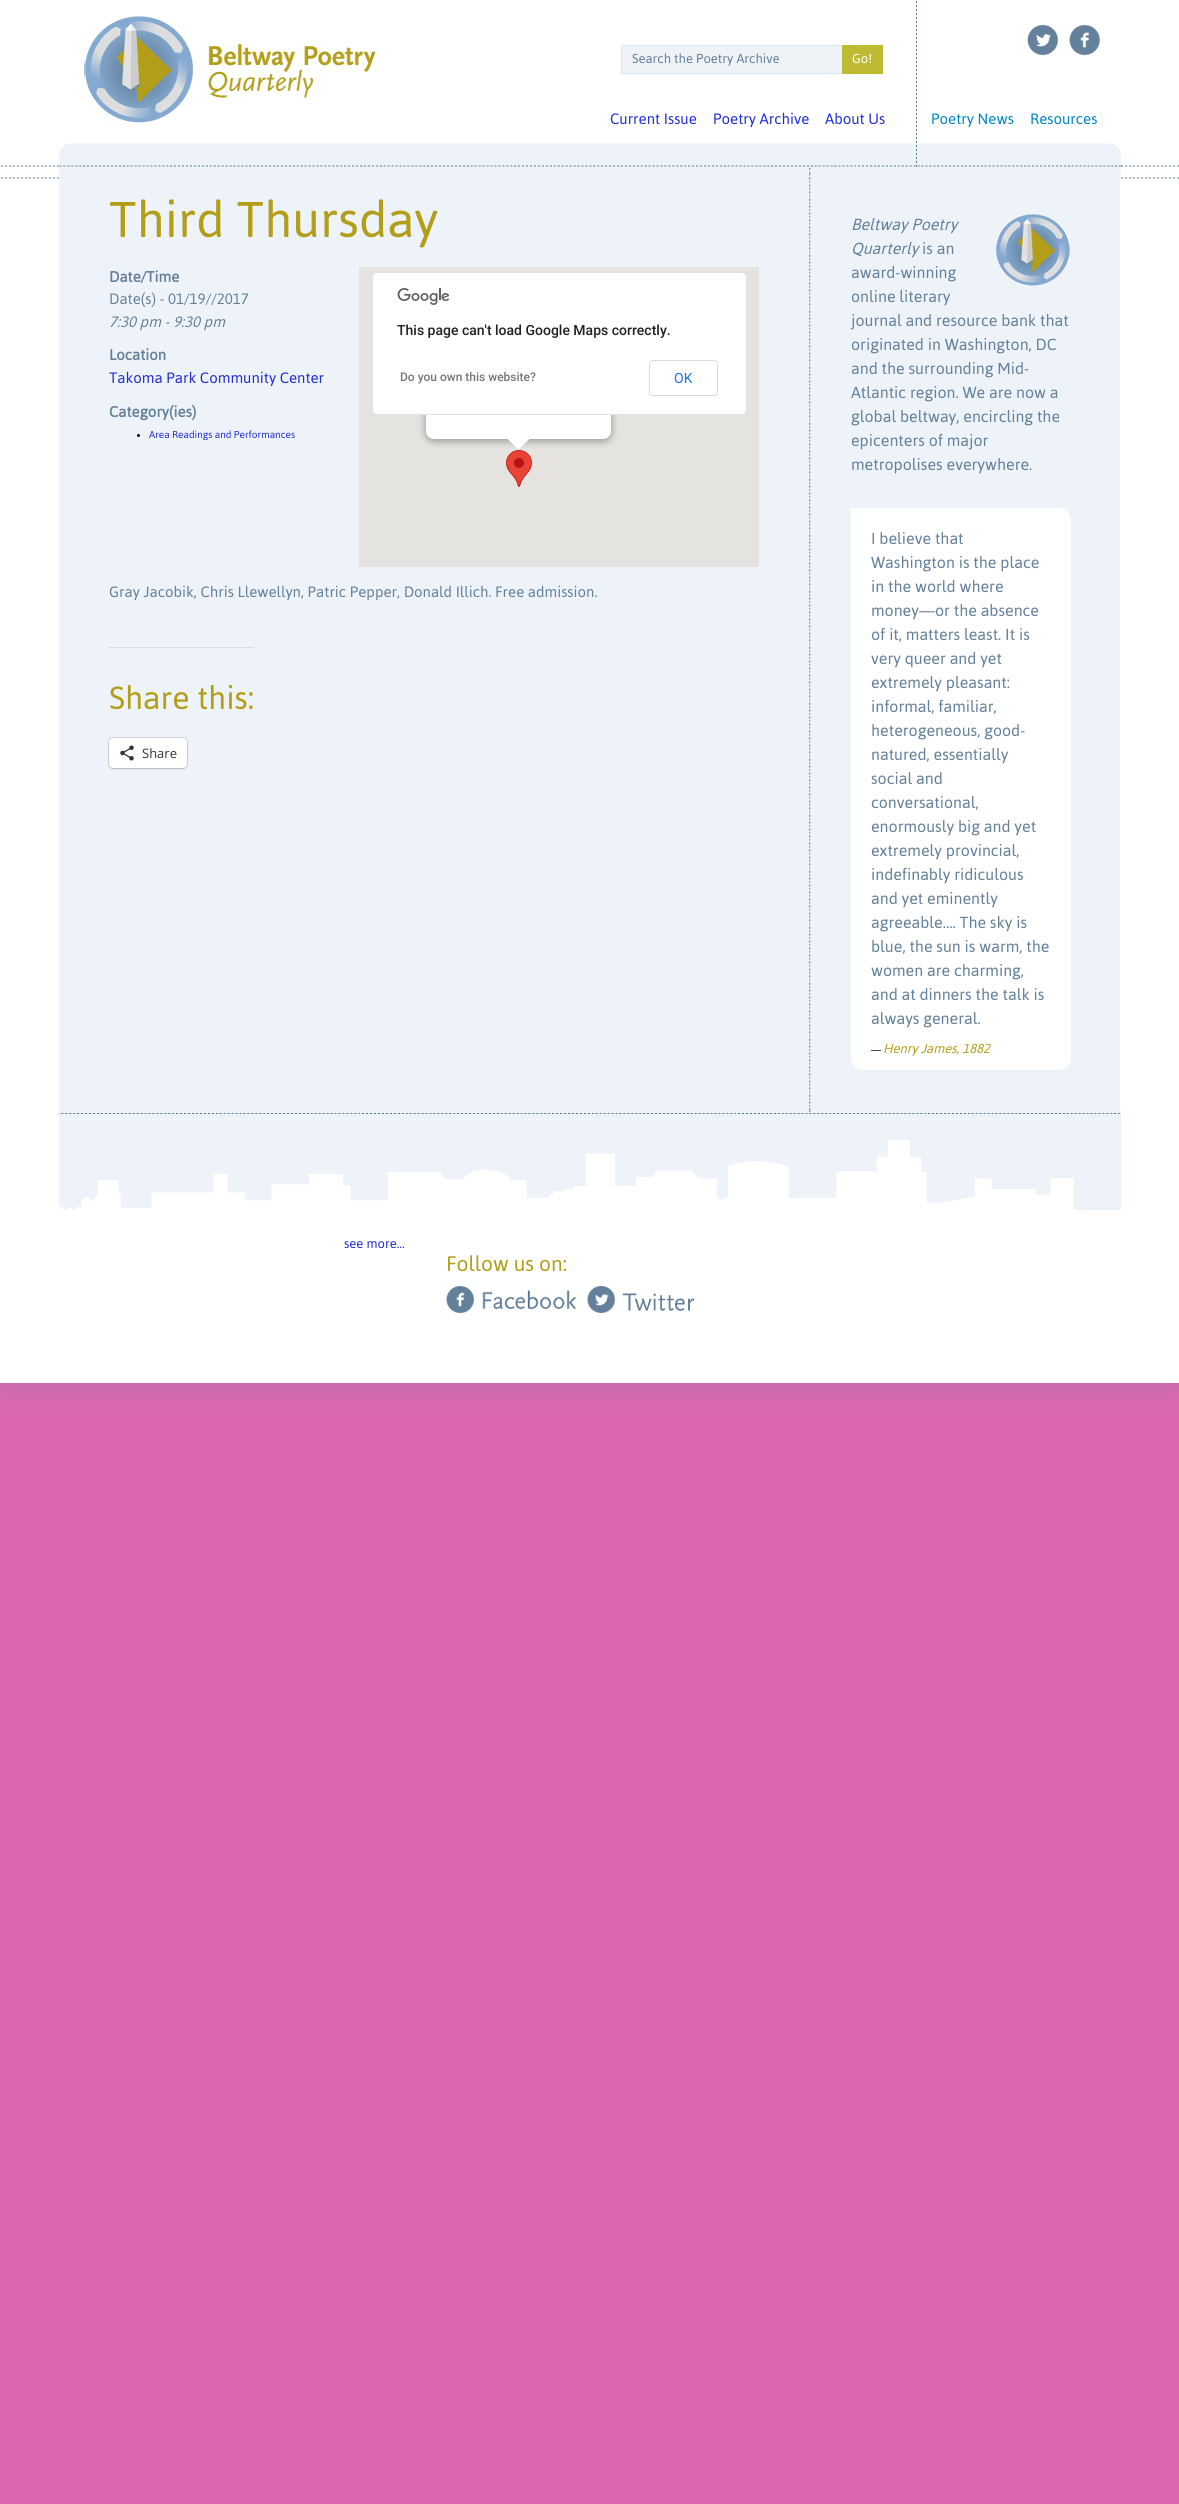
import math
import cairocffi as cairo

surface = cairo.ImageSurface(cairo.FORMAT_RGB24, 1179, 2504)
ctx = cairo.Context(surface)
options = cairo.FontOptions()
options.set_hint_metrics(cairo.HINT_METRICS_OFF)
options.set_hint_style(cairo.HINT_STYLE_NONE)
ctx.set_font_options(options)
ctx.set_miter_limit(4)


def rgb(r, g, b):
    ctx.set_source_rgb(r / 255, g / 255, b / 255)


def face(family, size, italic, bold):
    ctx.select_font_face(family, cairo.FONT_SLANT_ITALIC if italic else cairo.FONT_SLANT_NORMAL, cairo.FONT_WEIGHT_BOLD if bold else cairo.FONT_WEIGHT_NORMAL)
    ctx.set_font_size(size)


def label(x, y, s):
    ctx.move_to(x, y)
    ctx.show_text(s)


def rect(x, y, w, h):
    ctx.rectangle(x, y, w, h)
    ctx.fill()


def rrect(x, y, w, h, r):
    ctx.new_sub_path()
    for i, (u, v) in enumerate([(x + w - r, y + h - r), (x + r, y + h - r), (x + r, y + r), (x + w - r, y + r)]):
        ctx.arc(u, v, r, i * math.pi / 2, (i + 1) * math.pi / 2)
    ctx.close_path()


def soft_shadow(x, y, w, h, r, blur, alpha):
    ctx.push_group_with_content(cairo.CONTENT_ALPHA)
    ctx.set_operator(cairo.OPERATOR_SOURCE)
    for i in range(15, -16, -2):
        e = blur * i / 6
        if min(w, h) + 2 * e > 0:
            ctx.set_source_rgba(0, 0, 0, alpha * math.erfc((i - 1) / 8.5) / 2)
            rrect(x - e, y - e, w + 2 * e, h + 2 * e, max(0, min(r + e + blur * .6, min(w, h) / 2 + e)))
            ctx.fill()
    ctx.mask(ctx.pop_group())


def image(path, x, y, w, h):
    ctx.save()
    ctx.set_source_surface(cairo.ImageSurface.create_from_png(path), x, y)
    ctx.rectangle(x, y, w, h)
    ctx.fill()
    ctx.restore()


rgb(221, 102, 177)
ctx.paint()
rgb(106, 132, 163)
soft_shadow(0, 0, 1179, 1383, 0, 22.5, 0.33)
rgb(255, 255, 255)
rect(0, 0, 1179, 1383)
image('image0.png', 1, 165, 1178, 14)
rgb(238, 243, 249)
rect(59, 174, 750, 936)
image('image1.png', 59, 0, 1062, 174)
image('image2.png', 84, 16, 292, 107)
image('image3.png', 1027, 25, 31, 30)
image('image4.png', 1069, 25, 31, 30)
rgb(239, 243, 248)
rect(622, 46, 220, 27)
rgb(206, 236, 242)
rect(621, 45, 221, 1)
rect(621, 73, 221, 1)
rect(621, 45, 1, 29)
face('Asap', 13, 0, 0)
rgb(100, 129, 155)
label(632, 63, 'Search the Poetry Archive')
rgb(190, 186, 50)
rect(842, 45, 41, 29)
rgb(255, 255, 255)
label(852, 63, 'Go!')
face('Asap', 15, 0, 0)
rgb(34, 46, 214)
label(610, 124, 'Current Issue')
label(713, 124, 'Poetry Archive')
label(825, 124, 'About Us')
rgb(0, 134, 199)
label(931, 124, 'Poetry News')
label(1030, 124, 'Resources')
image('image5.png', 809, 174, 312, 936)
image('image6.png', 59, 1110, 1062, 100)
face('Asap', 50, 0, 0)
rgb(179, 158, 26)
label(109, 237, 'Third Thursday')
face('Asap', 15, 0, 1)
rgb(100, 129, 155)
label(109, 282, 'Date/Time')
face('Asap', 15, 0, 0)
label(109, 304, 'Date(s) - 01/19//2017')
face('Asap', 15, 1, 0)
label(109, 327, '7:30 pm - 9:30 pm')
face('Asap', 15, 0, 1)
label(109, 360, 'Location')
face('Asap', 15, 0, 0)
rgb(34, 46, 214)
label(109, 383, 'Takoma Park Community Center')
rgb(229, 227, 223)
rect(359, 267, 400, 300)
image('image7.png', 506, 450, 26, 37)
rgb(0, 0, 0)
soft_shadow(425, 329, 187, 113, 9, 3.5, 0.3)
rgb(255, 255, 255)
rrect(426, 328, 185, 111, 8)
ctx.fill()
ctx.new_path()
ctx.move_to(507, 438)
ctx.line_to(507, 438.5)
ctx.line_to(518.5, 449.5)
ctx.line_to(530.5, 438)
ctx.close_path()
ctx.fill()
rrect(372, 272, 375, 143, 5)
ctx.fill()
rrect(372.5, 272.5, 374, 142, 4.5)
ctx.set_source_rgba(0, 0, 0, 0.12)
ctx.set_line_width(1)
ctx.stroke()
image('image8.png', 397, 288, 52, 17)
face('Roboto Medium', 14, 0, 0)
rgb(33, 33, 33)
label(397, 335, 'This page can\'t load Google Maps correctly.')
face('Roboto Medium', 12, 0, 0)
rgb(117, 117, 117)
label(400, 381, 'Do you own this website?')
rrect(649.5, 360.5, 68, 35, 3.5)
rgb(218, 220, 224)
ctx.stroke()
face('Roboto', 14, 0, 0)
rgb(26, 115, 232)
label(674, 383, 'OK')
face('Asap', 15, 0, 1)
rgb(100, 129, 155)
label(109, 417, 'Category(ies)')
rgb(0, 0, 0)
ctx.new_path()
ctx.arc(138.5, 435.5, 1.5, 0, 2 * math.pi)
ctx.fill()
face('Asap', 10, 0, 0)
rgb(34, 46, 214)
label(149, 438, 'Area Readings and Performances')
face('Asap', 15, 0, 0)
rgb(100, 129, 155)
label(109, 597, 'Gray Jacobik, Chris Llewellyn, Patric Pepper, Donald Illich. Free admission.')
rgb(220, 220, 222)
rect(109, 647, 145, 1)
face('Asap', 32, 0, 0)
rgb(179, 158, 26)
label(109, 709, 'Share this:')
rrect(108.5, 737.5, 79, 31, 4.5)
rgb(209, 214, 219)
ctx.stroke()
rgb(0, 0, 0)
soft_shadow(109, 739, 78, 30, 4, 1, 0.12)
rgb(255, 255, 255)
rrect(109, 738, 78, 30, 4)
ctx.fill()
image('image9.png', 120, 745, 14, 16)
face('Open Sans', 13, 0, 0)
rgb(44, 51, 56)
label(142, 758, 'Share')
face('Asap', 16, 1, 0)
rgb(100, 129, 155)
label(851, 230, 'Beltway Poetry')
image('image10.png', 996, 214, 74, 72)
label(851, 254, 'Quarterly')
face('Asap', 16, 0, 0)
label(922, 254, 'is an')
label(851, 278, 'award-winning')
label(851, 302, 'online literary')
label(851, 326, 'journal and resource bank that')
label(851, 350, 'originated in Washington, DC')
label(851, 374, 'and the surrounding Mid-')
label(851, 398, 'Atlantic region. We are now a')
label(851, 422, 'global beltway, encircling the')
label(851, 446, 'epicenters of major')
label(851, 470, 'metropolises everywhere.')
rgb(255, 255, 255)
ctx.new_path()
ctx.move_to(851, 508)
ctx.line_to(1059, 508)
ctx.curve_to(1065.5, 508, 1071, 513.5, 1071, 520)
ctx.line_to(1071, 1058)
ctx.curve_to(1071, 1064.5, 1065.5, 1070, 1059, 1070)
ctx.line_to(863, 1070)
ctx.curve_to(856.5, 1070, 851, 1064.5, 851, 1058)
ctx.close_path()
ctx.fill()
rgb(100, 129, 155)
label(871, 544, 'I believe that')
label(871, 568, 'Washington is the place')
label(871, 592, 'in the world where')
label(871, 616, 'money—or the absence')
label(871, 640, 'of it, matters least. It is')
label(871, 664, 'very queer and yet')
label(871, 688, 'extremely pleasant:')
label(871, 712, 'informal, familiar,')
label(871, 736, 'heterogeneous, good-')
label(871, 760, 'natured, essentially')
label(871, 784, 'social and')
label(871, 808, 'conversational,')
label(871, 832, 'enormously big and yet')
label(871, 856, 'extremely provincial,')
label(871, 880, 'indefinably ridiculous')
label(871, 904, 'and yet eminently')
label(871, 928, 'agreeable…. The sky is')
label(871, 952, 'blue, the sun is warm, the')
label(871, 976, 'women are charming,')
label(871, 1000, 'and at dinners the talk is')
label(871, 1024, 'always general.')
face('Asap', 10, 0, 0)
rgb(0, 0, 0)
label(871, 1053, '—')
face('Asap', 13, 1, 0)
rgb(179, 158, 26)
label(883, 1053, 'Henry James, 1882')
face('Asap', 13, 0, 0)
rgb(34, 46, 214)
label(344, 1248, 'see more…')
face('Asap', 21, 0, 0)
rgb(179, 158, 26)
label(446, 1271, 'Follow us on:')
image('image11.png', 446, 1286, 131, 27)
image('image12.png', 587, 1286, 108, 27)
surface.write_to_png('render.png')
